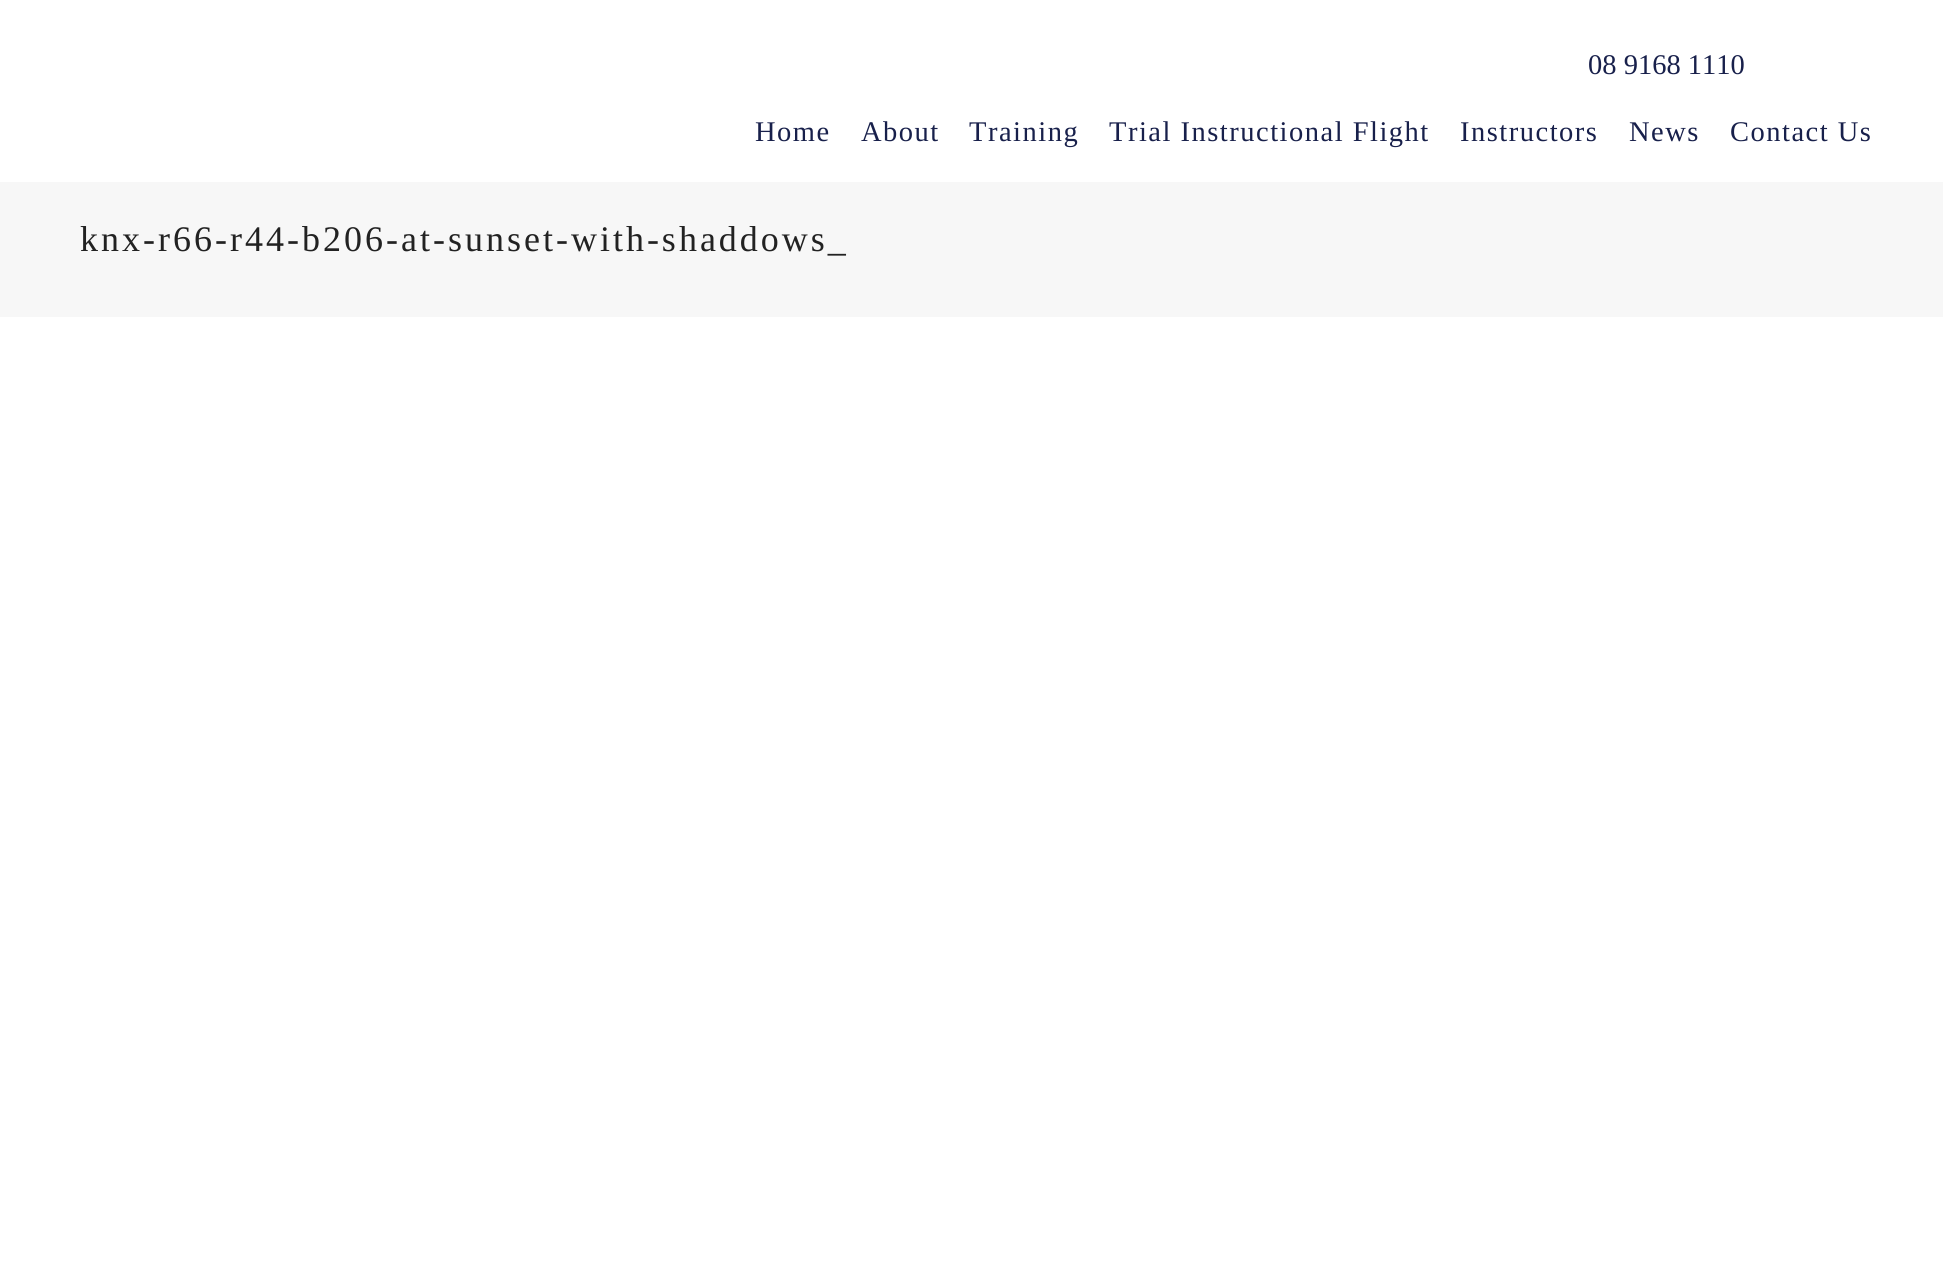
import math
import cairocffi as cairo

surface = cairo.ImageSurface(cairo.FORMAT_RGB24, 1943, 1284)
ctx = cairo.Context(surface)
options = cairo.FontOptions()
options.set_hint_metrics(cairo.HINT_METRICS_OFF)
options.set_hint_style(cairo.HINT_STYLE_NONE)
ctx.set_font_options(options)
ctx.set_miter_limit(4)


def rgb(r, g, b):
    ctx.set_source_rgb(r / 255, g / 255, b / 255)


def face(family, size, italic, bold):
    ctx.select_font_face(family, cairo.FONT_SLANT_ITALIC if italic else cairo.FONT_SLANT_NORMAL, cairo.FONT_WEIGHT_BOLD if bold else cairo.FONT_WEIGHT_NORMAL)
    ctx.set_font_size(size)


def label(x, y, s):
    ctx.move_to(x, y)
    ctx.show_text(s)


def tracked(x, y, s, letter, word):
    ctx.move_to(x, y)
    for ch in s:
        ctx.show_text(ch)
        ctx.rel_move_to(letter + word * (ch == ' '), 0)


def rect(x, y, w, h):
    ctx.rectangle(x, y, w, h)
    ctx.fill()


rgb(255, 255, 255)
ctx.paint()
face('Liberation Serif', 28.5, 0, 0)
rgb(24, 32, 75)
label(1588, 74, '08 9168 1110')
tracked(755, 141, 'Home', 1.5, 0)
tracked(861, 141, 'About', 1.5, 0)
tracked(969, 141, 'Training', 1.5, 0)
tracked(1109, 141, 'Trial Instructional Flight', 1.5, 0)
tracked(1460, 141, 'Instructors', 1.5, 0)
tracked(1629, 141, 'News', 1.5, 0)
tracked(1730, 141, 'Contact Us', 1.5, 0)
rgb(247, 247, 247)
rect(0, 182, 1943, 135)
face('Liberation Serif', 36, 0, 0)
rgb(34, 34, 34)
tracked(80, 251, 'knx-r66-r44-b206-at-sunset-with-shaddows_', 3, 0)
surface.write_to_png('render.png')
